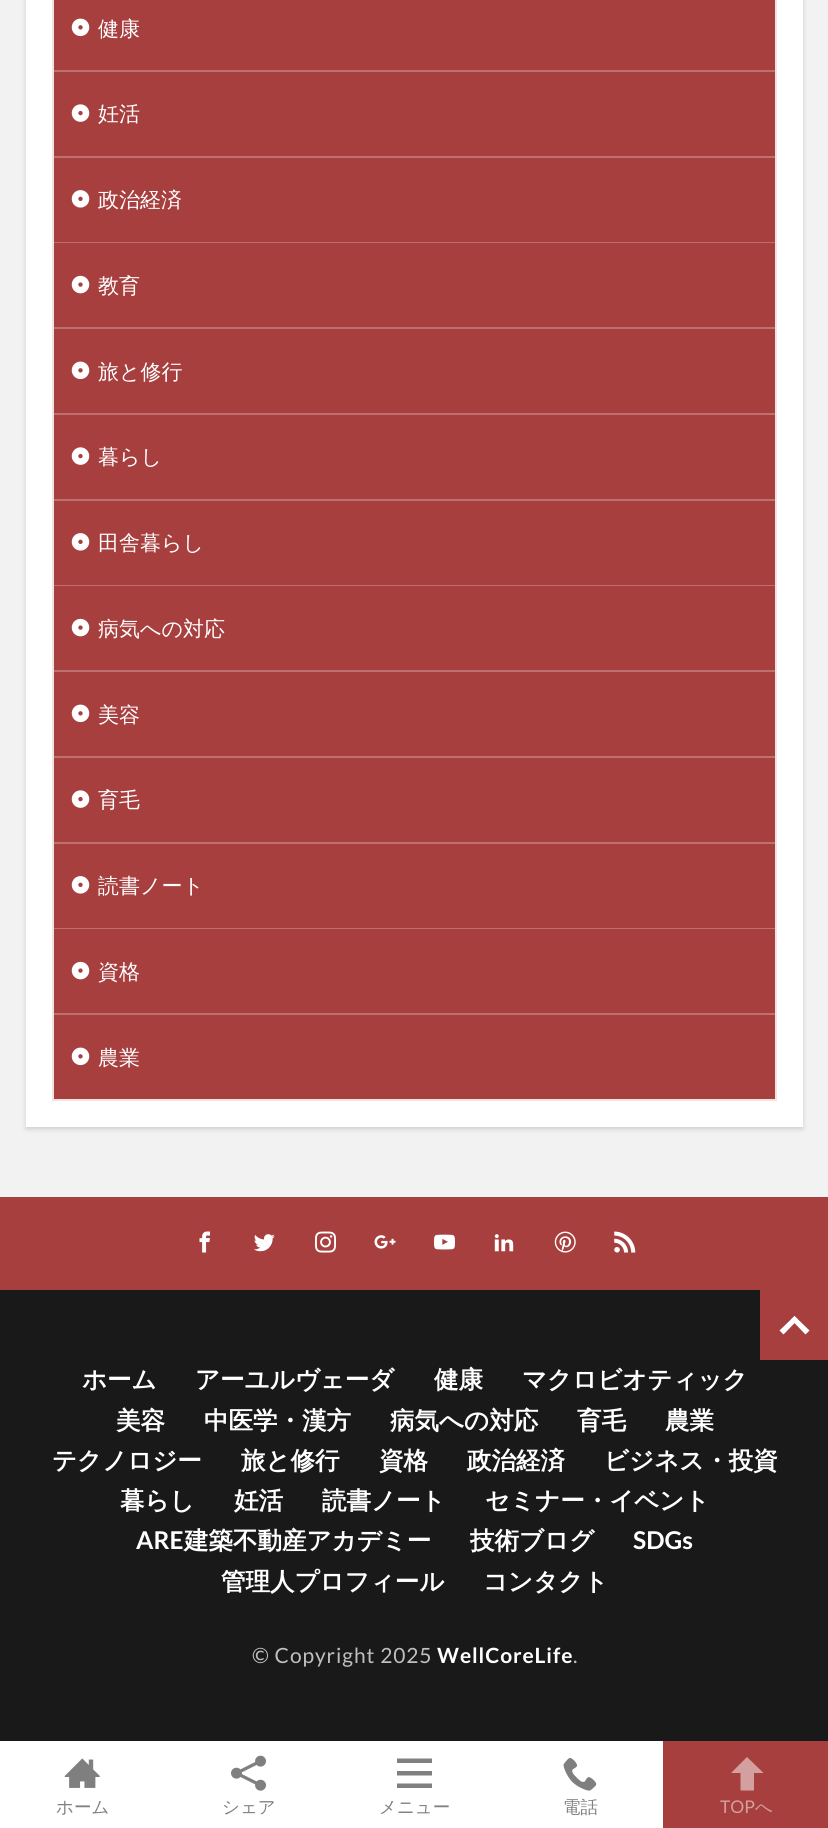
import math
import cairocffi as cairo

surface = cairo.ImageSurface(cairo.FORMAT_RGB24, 828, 1828)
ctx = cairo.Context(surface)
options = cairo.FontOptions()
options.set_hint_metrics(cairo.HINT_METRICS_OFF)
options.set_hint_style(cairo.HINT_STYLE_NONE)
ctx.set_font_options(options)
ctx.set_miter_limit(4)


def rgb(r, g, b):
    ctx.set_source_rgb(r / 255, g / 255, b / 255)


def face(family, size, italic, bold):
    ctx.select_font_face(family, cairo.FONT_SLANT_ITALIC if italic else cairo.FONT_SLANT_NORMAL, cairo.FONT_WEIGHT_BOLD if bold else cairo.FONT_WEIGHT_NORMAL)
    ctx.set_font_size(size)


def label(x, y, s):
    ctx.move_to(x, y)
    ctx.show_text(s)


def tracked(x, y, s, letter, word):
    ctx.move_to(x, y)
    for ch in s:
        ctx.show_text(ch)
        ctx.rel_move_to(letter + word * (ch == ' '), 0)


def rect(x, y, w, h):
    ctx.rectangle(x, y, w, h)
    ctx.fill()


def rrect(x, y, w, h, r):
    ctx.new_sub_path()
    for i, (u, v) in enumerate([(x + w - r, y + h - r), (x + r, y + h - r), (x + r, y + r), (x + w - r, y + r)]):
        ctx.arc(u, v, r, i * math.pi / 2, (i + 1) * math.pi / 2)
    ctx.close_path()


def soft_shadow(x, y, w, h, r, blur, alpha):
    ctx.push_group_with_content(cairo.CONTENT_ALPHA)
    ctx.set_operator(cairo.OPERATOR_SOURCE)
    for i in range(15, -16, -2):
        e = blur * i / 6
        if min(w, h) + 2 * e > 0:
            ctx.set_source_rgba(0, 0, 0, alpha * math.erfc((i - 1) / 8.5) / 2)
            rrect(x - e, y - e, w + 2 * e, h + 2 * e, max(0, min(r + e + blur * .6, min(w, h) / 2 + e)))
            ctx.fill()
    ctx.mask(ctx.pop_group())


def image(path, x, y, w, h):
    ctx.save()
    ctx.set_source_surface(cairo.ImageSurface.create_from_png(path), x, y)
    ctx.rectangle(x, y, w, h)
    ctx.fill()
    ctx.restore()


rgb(242, 242, 242)
ctx.paint()
rgb(0, 0, 0)
soft_shadow(26, -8, 777, 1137, 0, 2.5, 0.15)
rgb(255, 255, 255)
rect(26, 0, 777, 1127)
rgb(242, 226, 226)
ctx.new_path()
ctx.move_to(777, -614)
ctx.line_to(777, 1101)
ctx.line_to(775, 1099)
ctx.line_to(775, -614)
ctx.close_path()
ctx.fill()
ctx.set_source_rgba(0.659, 0.247, 0.247, 0.15)
ctx.new_path()
ctx.move_to(777, 1101)
ctx.line_to(52, 1101)
ctx.line_to(54, 1099)
ctx.line_to(775, 1099)
ctx.close_path()
ctx.fill()
ctx.new_path()
ctx.move_to(52, 1101)
ctx.line_to(52, -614)
ctx.line_to(54, -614)
ctx.line_to(54, 1099)
ctx.close_path()
ctx.fill()
rgb(168, 63, 63)
rect(54, 0, 721, 70)
image('image0.png', 71, 18, 19, 19)
face('WenQuanYi Zen Hei Medium', 21, 0, 0)
rgb(255, 255, 255)
label(98, 36, '健康')
rgb(190, 111, 111)
rect(54, 70, 721, 2)
rgb(168, 63, 63)
rect(54, 72, 721, 84)
image('image1.png', 71, 104, 19, 18)
rgb(255, 255, 255)
label(98, 121, '妊活')
rgb(190, 111, 111)
rect(54, 156, 721, 2)
rgb(168, 63, 63)
rect(54, 158, 721, 84)
image('image2.png', 71, 190, 19, 18)
rgb(255, 255, 255)
label(98, 207, '政治経済')
rgb(190, 111, 111)
rect(54, 242, 721, 1)
rgb(168, 63, 63)
rect(54, 243, 721, 84)
image('image3.png', 71, 275, 19, 19)
rgb(255, 255, 255)
label(98, 293, '教育')
rgb(190, 111, 111)
rect(54, 327, 721, 2)
rgb(168, 63, 63)
rect(54, 329, 721, 84)
image('image0.png', 71, 361, 19, 19)
rgb(255, 255, 255)
label(98, 379, '旅と修行')
rgb(190, 111, 111)
rect(54, 413, 721, 2)
rgb(168, 63, 63)
rect(54, 415, 721, 84)
image('image1.png', 71, 447, 19, 18)
rgb(255, 255, 255)
label(98, 464, '暮らし')
rgb(190, 111, 111)
rect(54, 499, 721, 2)
rgb(168, 63, 63)
rect(54, 501, 721, 84)
image('image2.png', 71, 533, 19, 18)
rgb(255, 255, 255)
label(98, 550, '田舎暮らし')
rgb(190, 111, 111)
rect(54, 585, 721, 1)
rgb(168, 63, 63)
rect(54, 586, 721, 84)
image('image3.png', 71, 618, 19, 19)
rgb(255, 255, 255)
label(98, 636, '病気への対応')
rgb(190, 111, 111)
rect(54, 670, 721, 2)
rgb(168, 63, 63)
rect(54, 672, 721, 84)
image('image0.png', 71, 704, 19, 19)
rgb(255, 255, 255)
label(98, 722, '美容')
rgb(190, 111, 111)
rect(54, 756, 721, 2)
rgb(168, 63, 63)
rect(54, 758, 721, 84)
image('image1.png', 71, 790, 19, 18)
rgb(255, 255, 255)
label(98, 807, '育毛')
rgb(190, 111, 111)
rect(54, 842, 721, 2)
rgb(168, 63, 63)
rect(54, 844, 721, 84)
image('image2.png', 71, 876, 19, 18)
rgb(255, 255, 255)
label(98, 893, '読書ノート')
rgb(190, 111, 111)
rect(54, 928, 721, 1)
rgb(168, 63, 63)
rect(54, 929, 721, 84)
image('image3.png', 71, 961, 19, 19)
rgb(255, 255, 255)
label(98, 979, '資格')
rgb(190, 111, 111)
rect(54, 1013, 721, 2)
rgb(168, 63, 63)
rect(54, 1015, 721, 84)
image('image0.png', 71, 1047, 19, 19)
rgb(255, 255, 255)
label(98, 1065, '農業')
rgb(168, 63, 63)
rect(0, 1197, 828, 93)
image('image4.png', 199, 1231, 11, 22)
image('image5.png', 254, 1234, 21, 18)
image('image6.png', 315, 1231, 21, 22)
image('image7.png', 374, 1235, 22, 14)
image('image8.png', 434, 1234, 21, 16)
image('image9.png', 494, 1234, 20, 18)
image('image10.png', 554, 1231, 22, 22)
image('image11.png', 614, 1231, 22, 22)
rgb(25, 25, 25)
rect(0, 1290, 828, 451)
rgb(168, 63, 63)
rect(760, 1290, 68, 70)
rgb(255, 255, 255)
ctx.new_path()
ctx.move_to(779.5, 1330.5)
ctx.line_to(794.5, 1316)
ctx.line_to(798, 1319.5)
ctx.line_to(783.5, 1334.5)
ctx.close_path()
ctx.fill()
ctx.new_path()
ctx.move_to(791, 1319.5)
ctx.line_to(794.5, 1316)
ctx.line_to(809.5, 1330.5)
ctx.line_to(805.5, 1334.5)
ctx.close_path()
ctx.fill()
face('WenQuanYi Zen Hei', 24.5, 0, 1)
label(82, 1388, 'ホーム')
label(195, 1388, 'アーユルヴェーダ')
label(434, 1388, '健康')
label(522, 1388, 'マクロビオティック')
label(116, 1429, '美容')
label(204, 1429, '中医学・漢方')
label(390, 1429, '病気への対応')
label(577, 1429, '育毛')
label(665, 1429, '農業')
label(52, 1469, 'テクノロジー')
label(241, 1469, '旅と修行')
label(379, 1469, '資格')
label(467, 1469, '政治経済')
label(604, 1469, 'ビジネス・投資')
label(120, 1509, '暮らし')
label(234, 1509, '妊活')
label(322, 1509, '読書ノート')
label(485, 1509, 'セミナー・イベント')
face('Lato', 24.5, 0, 1)
label(136, 1549, 'ARE')
face('WenQuanYi Zen Hei', 24.5, 0, 1)
label(184, 1549, '建築不動産アカデミー')
label(470, 1549, '技術ブログ')
face('Lato', 24.5, 0, 1)
label(633, 1549, 'SDGs')
face('WenQuanYi Zen Hei', 24.5, 0, 1)
label(221, 1590, '管理人プロフィール')
label(483, 1590, 'コンタクト')
face('Lato', 21, 0, 0)
rgb(191, 191, 191)
tracked(252, 1663, '© Copyright 2025', 0.9, 0)
face('Lato', 21, 0, 1)
rgb(255, 255, 255)
tracked(437, 1663, 'WellCoreLife', 0.9, 0)
face('Lato', 21, 0, 0)
rgb(191, 191, 191)
tracked(573, 1663, '.', 0.9, 0)
rgb(255, 255, 255)
rect(0, 1741, 663, 87)
image('image12.png', 64, 1758, 36, 30)
face('WenQuanYi Zen Hei Medium', 17.5, 0, 0)
rgb(128, 128, 128)
label(56, 1813, 'ホーム')
image('image13.png', 231, 1755, 35, 36)
label(222, 1813, 'シェア')
ctx.new_path()
ctx.move_to(397, 1758.5)
ctx.line_to(432, 1758.5)
ctx.line_to(432, 1763)
ctx.line_to(397, 1763)
ctx.close_path()
ctx.move_to(397, 1771)
ctx.line_to(432, 1771)
ctx.line_to(432, 1775.5)
ctx.line_to(397, 1775.5)
ctx.close_path()
ctx.move_to(397, 1783.5)
ctx.line_to(432, 1783.5)
ctx.line_to(432, 1788)
ctx.line_to(397, 1788)
ctx.close_path()
ctx.fill()
label(379, 1813, 'メニュー')
image('image14.png', 563, 1758, 34, 33)
label(563, 1813, '電話')
rgb(168, 63, 63)
rect(663, 1741, 165, 87)
rgb(212, 159, 159)
ctx.new_path()
ctx.move_to(747, 1757)
ctx.line_to(731, 1773)
ctx.line_to(740.5, 1773)
ctx.line_to(740.5, 1790.5)
ctx.line_to(754, 1790.5)
ctx.line_to(754, 1773)
ctx.line_to(763.5, 1773)
ctx.close_path()
ctx.fill()
face('Lato', 17.5, 0, 0)
label(720, 1813, 'TOP')
face('WenQuanYi Zen Hei Medium', 17.5, 0, 0)
label(755, 1813, 'へ')
surface.write_to_png('render.png')
